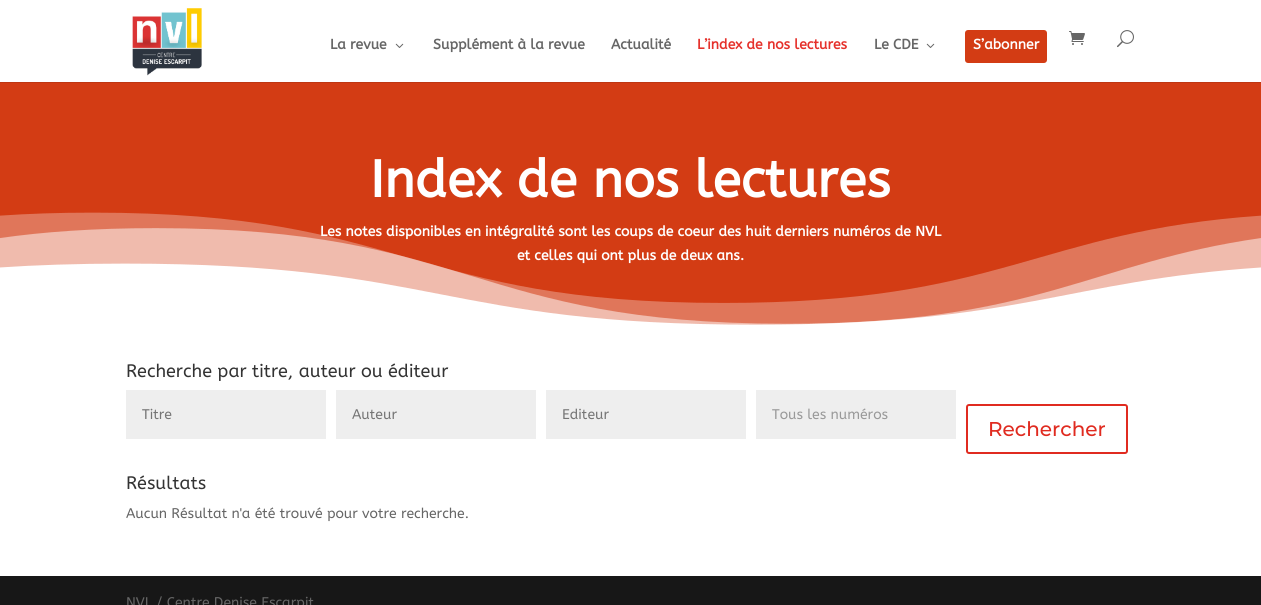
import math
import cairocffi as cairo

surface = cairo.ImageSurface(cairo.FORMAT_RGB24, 1261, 605)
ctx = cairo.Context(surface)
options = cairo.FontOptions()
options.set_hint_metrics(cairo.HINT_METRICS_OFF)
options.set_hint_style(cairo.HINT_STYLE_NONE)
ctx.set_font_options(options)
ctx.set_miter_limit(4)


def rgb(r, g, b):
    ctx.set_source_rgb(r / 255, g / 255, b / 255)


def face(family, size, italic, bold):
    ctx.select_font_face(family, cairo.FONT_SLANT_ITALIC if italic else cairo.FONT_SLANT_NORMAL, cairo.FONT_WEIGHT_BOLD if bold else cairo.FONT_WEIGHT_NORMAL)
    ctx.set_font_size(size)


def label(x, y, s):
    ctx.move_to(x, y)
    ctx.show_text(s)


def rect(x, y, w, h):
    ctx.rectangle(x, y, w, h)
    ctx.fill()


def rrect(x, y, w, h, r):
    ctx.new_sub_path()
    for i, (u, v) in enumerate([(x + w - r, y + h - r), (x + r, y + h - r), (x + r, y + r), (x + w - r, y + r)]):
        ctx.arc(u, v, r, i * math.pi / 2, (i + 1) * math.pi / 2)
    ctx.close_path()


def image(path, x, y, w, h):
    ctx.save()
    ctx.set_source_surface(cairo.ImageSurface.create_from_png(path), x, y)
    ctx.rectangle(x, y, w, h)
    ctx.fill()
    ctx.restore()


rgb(255, 255, 255)
ctx.paint()
rgb(190, 54, 18)
rect(0, 82, 1261, 1)
image('image0.png', 132, 8, 70, 68)
face('ABeeZee', 14, 0, 1)
rgb(102, 102, 102)
label(330, 49, 'La revue')
image('image1.png', 395, 43, 9, 5)
label(433, 49, 'Supplément à la revue')
label(611, 49, 'Actualité')
rgb(229, 49, 43)
label(697, 49, 'L’index de nos lectures')
rgb(102, 102, 102)
label(874, 49, 'Le CDE')
image('image1.png', 926, 43, 9, 5)
rgb(211, 60, 20)
rrect(965, 30, 82, 33, 3)
ctx.fill()
rgb(255, 255, 255)
label(973, 49, 'S’abonner')
image('image2.png', 1069, 31, 16, 14)
image('image3.png', 1117, 30, 17, 18)
rgb(211, 60, 20)
rect(0, 83, 1261, 242)
face('ABeeZee', 52, 0, 1)
rgb(255, 255, 255)
label(370, 197, 'Index de nos lectures')
image('image4.png', 0, 212, 1261, 150)
face('ABeeZee', 14, 0, 1)
label(320, 236, 'Les notes disponibles en intégralité sont les coups de coeur des huit derniers numéros de NVL')
label(517, 260, 'et celles qui ont plus de deux ans.')
face('ABeeZee', 18, 0, 0)
rgb(51, 51, 51)
label(126, 377, 'Recherche par titre, auteur ou éditeur')
rgb(238, 238, 238)
rect(126, 390, 200, 49)
face('ABeeZee', 14, 0, 0)
rgb(117, 117, 117)
label(142, 419, 'Titre')
rgb(238, 238, 238)
rect(336, 390, 200, 49)
rgb(117, 117, 117)
label(352, 419, 'Auteur')
rgb(238, 238, 238)
rect(546, 390, 200, 49)
rgb(117, 117, 117)
label(562, 419, 'Editeur')
rgb(238, 238, 238)
rect(756, 390, 200, 49)
rgb(153, 153, 153)
label(772, 419, 'Tous les numéros')
rrect(967, 405, 160, 48, 2)
rgb(224, 43, 32)
ctx.stroke()
face('Montserrat Medium', 20, 0, 0)
label(988, 436, 'Rechercher')
face('ABeeZee', 18, 0, 0)
rgb(51, 51, 51)
label(126, 489, 'Résultats')
face('ABeeZee', 14, 0, 0)
rgb(102, 102, 102)
label(126, 518, 'Aucun Résultat n\'a été trouvé pour votre recherche.')
rgb(23, 23, 23)
rect(0, 576, 1261, 29)
rgb(102, 102, 102)
label(126, 607, 'NVL / Centre Denise Escarpit')
surface.write_to_png('render.png')
